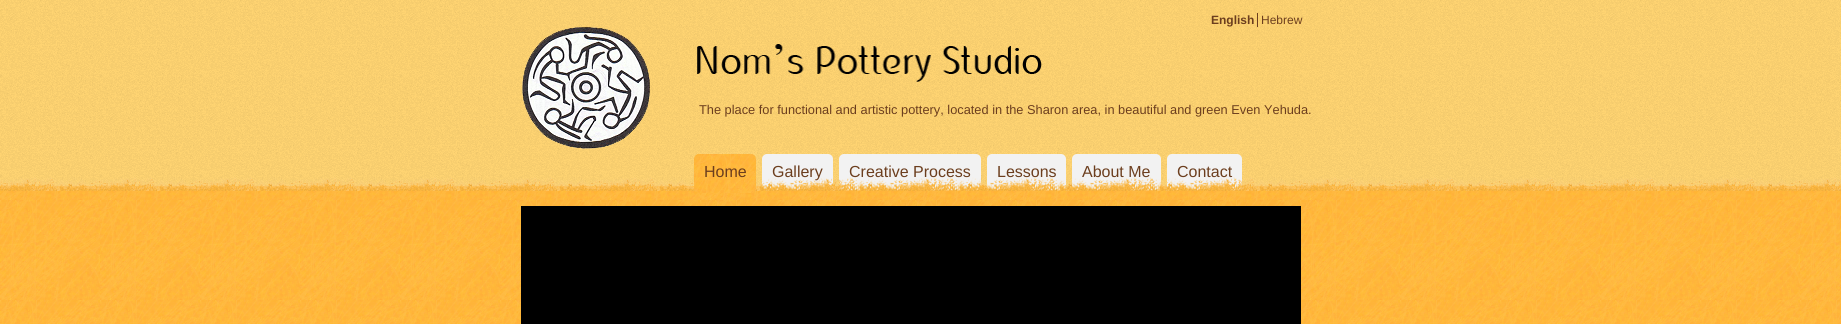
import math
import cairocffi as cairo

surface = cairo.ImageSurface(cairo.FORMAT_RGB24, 1841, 324)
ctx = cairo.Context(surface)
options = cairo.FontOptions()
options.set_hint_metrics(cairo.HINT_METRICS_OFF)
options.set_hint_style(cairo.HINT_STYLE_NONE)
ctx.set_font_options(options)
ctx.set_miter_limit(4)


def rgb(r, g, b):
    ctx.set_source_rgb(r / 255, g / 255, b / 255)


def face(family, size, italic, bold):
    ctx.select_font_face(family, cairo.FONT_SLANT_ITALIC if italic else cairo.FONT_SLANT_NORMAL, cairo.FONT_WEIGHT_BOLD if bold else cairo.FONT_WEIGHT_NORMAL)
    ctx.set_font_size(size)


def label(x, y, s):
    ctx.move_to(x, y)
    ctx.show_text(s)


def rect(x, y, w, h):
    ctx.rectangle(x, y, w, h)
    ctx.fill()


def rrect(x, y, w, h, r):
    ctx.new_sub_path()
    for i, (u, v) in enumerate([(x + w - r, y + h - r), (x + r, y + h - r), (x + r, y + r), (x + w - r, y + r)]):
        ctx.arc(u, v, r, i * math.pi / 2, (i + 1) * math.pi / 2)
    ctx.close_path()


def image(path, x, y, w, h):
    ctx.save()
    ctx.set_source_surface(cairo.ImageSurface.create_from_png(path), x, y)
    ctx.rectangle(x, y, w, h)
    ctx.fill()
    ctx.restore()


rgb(255, 255, 255)
ctx.paint()
image('image0.png', 0, 186, 1841, 138)
image('image1.png', 0, 0, 1841, 186)
face('Liberation Sans', 12, 0, 1)
rgb(108, 62, 30)
label(1211, 24, 'English')
face('Liberation Sans', 12, 0, 0)
label(1261, 24, 'Hebrew')
rect(1257, 13, 1, 14)
image('image2.png', 522, 27, 128, 122)
image('image3.png', 697, 44, 345, 38)
face('Liberation Sans', 12.8, 0, 0)
label(699, 114, 'The place for functional and artistic pottery, located in the Sharon area, in beautiful and green Even Yehuda.')
rgb(242, 242, 242)
rrect(762, 154, 71, 36, 5)
ctx.fill()
face('Liberation Sans', 16, 0, 0)
rgb(108, 62, 30)
label(772, 177, 'Gallery')
rgb(242, 242, 242)
rrect(839, 154, 142, 36, 5)
ctx.fill()
rgb(108, 62, 30)
label(849, 177, 'Creative Process')
rgb(242, 242, 242)
rrect(987, 154, 79, 36, 5)
ctx.fill()
rgb(108, 62, 30)
label(997, 177, 'Lessons')
rgb(242, 242, 242)
rrect(1072, 154, 89, 36, 5)
ctx.fill()
rgb(108, 62, 30)
label(1082, 177, 'About Me')
rgb(242, 242, 242)
rrect(1167, 154, 75, 36, 5)
ctx.fill()
rgb(108, 62, 30)
label(1177, 177, 'Contact')
image('image5.png', 0, 177, 1841, 14)
image('image4.png', 694, 154, 62, 39)
label(704, 177, 'Home')
rgb(0, 0, 0)
rect(521, 206, 780, 118)
surface.write_to_png('render.png')
